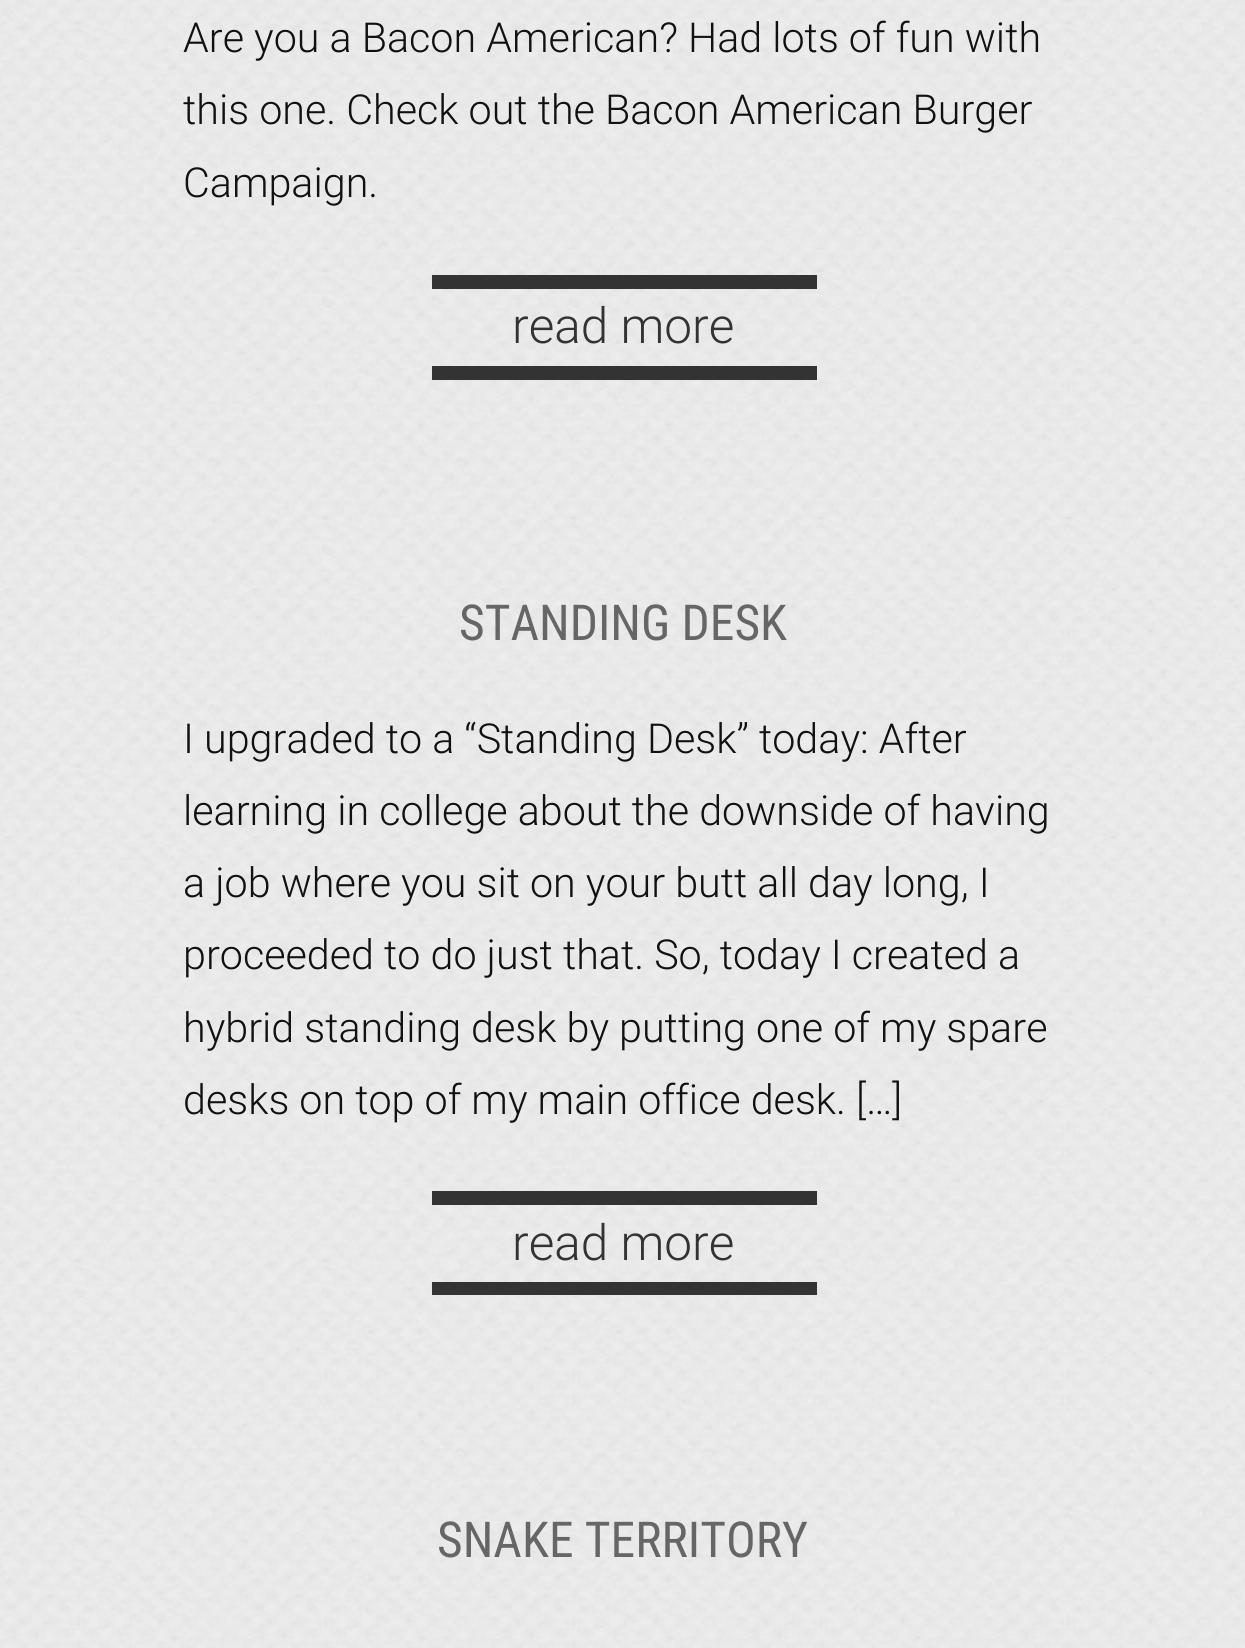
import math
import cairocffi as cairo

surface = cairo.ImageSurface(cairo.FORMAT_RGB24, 1245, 1648)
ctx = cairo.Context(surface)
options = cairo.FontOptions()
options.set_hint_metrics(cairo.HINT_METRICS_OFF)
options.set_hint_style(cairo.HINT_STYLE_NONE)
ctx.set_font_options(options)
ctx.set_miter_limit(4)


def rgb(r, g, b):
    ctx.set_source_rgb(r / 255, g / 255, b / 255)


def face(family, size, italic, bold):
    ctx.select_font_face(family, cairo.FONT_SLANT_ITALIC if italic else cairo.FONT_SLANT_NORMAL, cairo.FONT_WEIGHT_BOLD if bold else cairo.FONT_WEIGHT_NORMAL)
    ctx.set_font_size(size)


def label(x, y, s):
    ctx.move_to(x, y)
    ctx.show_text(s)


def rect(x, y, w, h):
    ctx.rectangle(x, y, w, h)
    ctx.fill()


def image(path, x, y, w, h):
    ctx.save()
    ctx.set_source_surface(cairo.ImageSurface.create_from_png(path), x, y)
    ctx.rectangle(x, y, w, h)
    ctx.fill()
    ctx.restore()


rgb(255, 255, 255)
ctx.paint()
image('image0.png', 0, 0, 1245, 1648)
face('Roboto Light', 41.25, 0, 0)
rgb(17, 17, 17)
label(183, 52, 'Are you a Bacon American? Had lots of fun with')
label(183, 124, 'this one. Check out the Bacon American Burger')
label(183, 197, 'Campaign.')
rgb(51, 51, 51)
rect(432, 275, 385, 14)
rect(432, 366, 385, 14)
face('Roboto Light', 49.5, 0, 0)
label(512, 343, 'read more')
face('Roboto Condensed', 49.5, 0, 0)
rgb(102, 102, 102)
label(459, 640, 'STANDING DESK')
face('Roboto Light', 41.25, 0, 0)
rgb(17, 17, 17)
label(183, 753, 'I upgraded to a “Standing Desk” today: After')
label(183, 825, 'learning in college about the downside of having')
label(183, 897, 'a job where you sit on your butt all day long, I')
label(183, 969, 'proceeded to do just that. So, today I created a')
label(183, 1042, 'hybrid standing desk by putting one of my spare')
label(183, 1114, 'desks on top of my main office desk. […]')
rgb(51, 51, 51)
rect(432, 1191, 385, 14)
rect(432, 1282, 385, 13)
face('Roboto Light', 49.5, 0, 0)
label(512, 1260, 'read more')
face('Roboto Condensed', 49.5, 0, 0)
rgb(102, 102, 102)
label(437, 1557, 'SNAKE TERRITORY')
surface.write_to_png('render.png')
